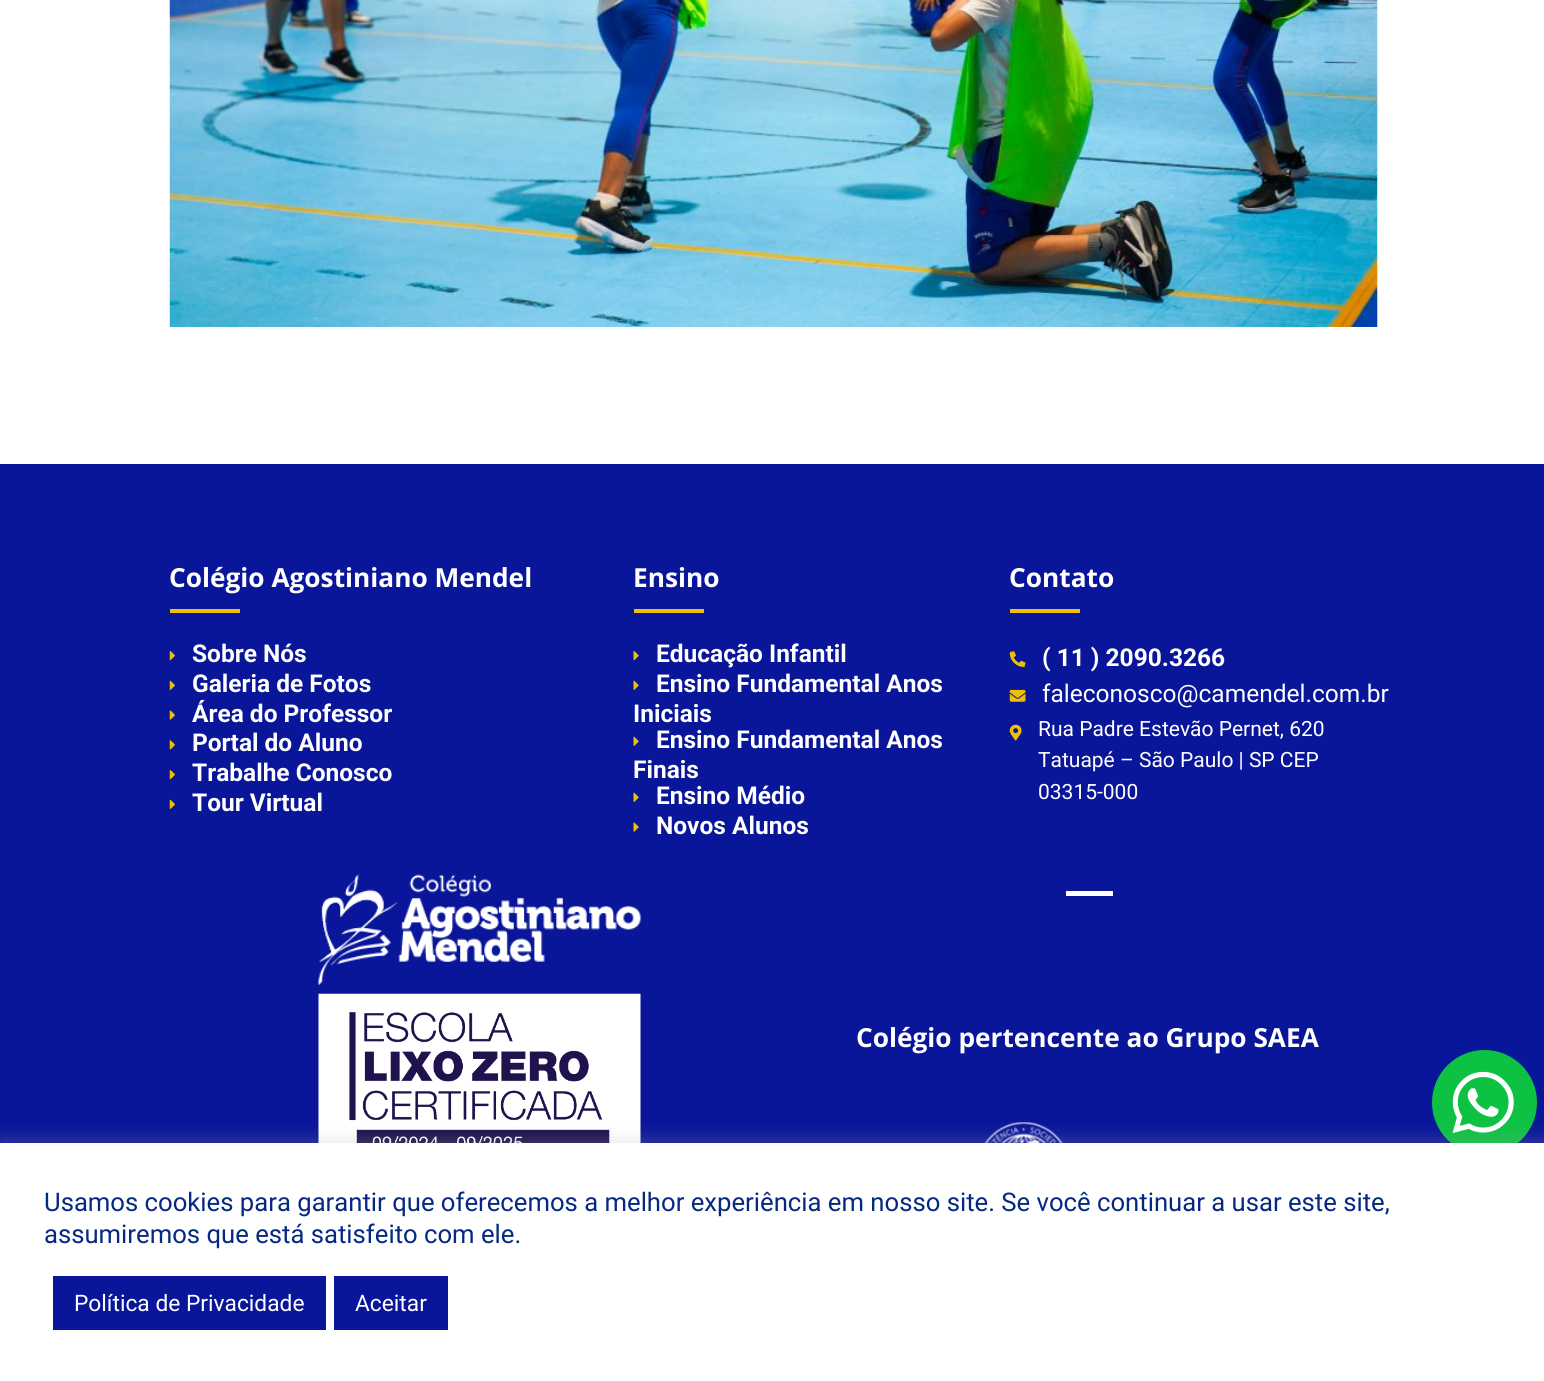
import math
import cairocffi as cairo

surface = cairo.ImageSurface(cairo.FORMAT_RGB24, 1544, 1381)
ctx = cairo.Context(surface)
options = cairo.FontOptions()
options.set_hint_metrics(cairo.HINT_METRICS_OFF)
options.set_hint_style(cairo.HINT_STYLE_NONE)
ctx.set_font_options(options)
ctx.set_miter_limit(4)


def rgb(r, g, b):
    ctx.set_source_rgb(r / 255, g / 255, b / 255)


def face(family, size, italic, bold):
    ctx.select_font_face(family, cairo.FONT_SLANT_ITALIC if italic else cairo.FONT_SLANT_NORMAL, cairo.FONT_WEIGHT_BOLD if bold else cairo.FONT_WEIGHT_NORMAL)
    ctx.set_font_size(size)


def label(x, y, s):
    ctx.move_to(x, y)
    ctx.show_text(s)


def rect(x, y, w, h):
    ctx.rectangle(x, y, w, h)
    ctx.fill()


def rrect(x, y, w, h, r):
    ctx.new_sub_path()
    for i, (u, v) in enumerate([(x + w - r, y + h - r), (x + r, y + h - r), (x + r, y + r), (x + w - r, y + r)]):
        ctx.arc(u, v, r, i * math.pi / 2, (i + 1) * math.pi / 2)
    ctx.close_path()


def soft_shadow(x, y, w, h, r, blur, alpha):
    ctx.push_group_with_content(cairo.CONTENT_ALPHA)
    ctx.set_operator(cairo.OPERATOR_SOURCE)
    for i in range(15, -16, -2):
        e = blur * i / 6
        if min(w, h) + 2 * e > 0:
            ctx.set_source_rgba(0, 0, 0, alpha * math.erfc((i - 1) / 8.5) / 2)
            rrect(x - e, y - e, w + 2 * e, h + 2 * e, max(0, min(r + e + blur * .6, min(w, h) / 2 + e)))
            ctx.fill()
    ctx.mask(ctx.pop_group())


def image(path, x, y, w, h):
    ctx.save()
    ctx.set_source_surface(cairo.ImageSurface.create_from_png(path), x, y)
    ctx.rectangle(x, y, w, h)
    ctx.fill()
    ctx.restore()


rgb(255, 255, 255)
ctx.paint()
image('image0.png', 169, 0, 1209, 327)
rgb(10, 22, 154)
rect(0, 464, 1544, 679)
face('Open Sans', 26.25, 0, 1)
rgb(255, 255, 255)
label(169, 587, 'Colégio Agostiniano Mendel')
rgb(238, 192, 0)
rect(170, 609, 70, 4)
image('image1.png', 169, 651, 6, 10)
face('Roboto', 24.5, 0, 1)
rgb(255, 255, 255)
label(192, 662, 'Sobre Nós')
image('image2.png', 169, 680, 6, 10)
label(192, 692, 'Galeria de Fotos')
image('image3.png', 169, 710, 6, 10)
label(192, 722, 'Área do Professor')
image('image4.png', 169, 740, 6, 10)
label(192, 751, 'Portal do Aluno')
image('image1.png', 169, 770, 6, 10)
label(192, 781, 'Trabalhe Conosco')
image('image2.png', 169, 799, 6, 10)
label(192, 811, 'Tour Virtual')
face('Open Sans', 26.25, 0, 1)
label(633, 587, 'Ensino')
rgb(238, 192, 0)
rect(634, 609, 70, 4)
image('image5.png', 633, 651, 6, 10)
face('Roboto', 24.5, 0, 1)
rgb(255, 255, 255)
label(656, 662, 'Educação Infantil')
image('image6.png', 633, 680, 6, 10)
label(656, 692, 'Ensino Fundamental Anos')
label(633, 722, 'Iniciais')
image('image6.png', 633, 736, 6, 10)
label(656, 748, 'Ensino Fundamental Anos')
label(633, 778, 'Finais')
image('image6.png', 633, 792, 6, 10)
label(656, 804, 'Ensino Médio')
image('image7.png', 633, 822, 6, 10)
label(656, 834, 'Novos Alunos')
face('Open Sans', 26.25, 0, 1)
label(1009, 587, 'Contato')
rgb(238, 192, 0)
rect(1010, 609, 70, 4)
image('image8.png', 1009, 651, 17, 16)
face('Roboto', 24.5, 0, 1)
rgb(255, 255, 255)
label(1042, 666, '( 11 ) 2090.3266')
image('image9.png', 1009, 689, 17, 13)
face('Roboto', 24.5, 0, 0)
label(1042, 702, 'faleconosco@camendel.com.br')
image('image10.png', 1009, 724, 13, 17)
face('Roboto', 21, 0, 0)
label(1038, 736, 'Rua Padre Estevão Pernet, 620')
label(1038, 767, 'Tatuapé – São Paulo | SP CEP')
label(1038, 799, '03315-000')
image('image11.png', 318, 874, 323, 111)
image('image12.png', 318, 993, 323, 150)
rect(1066, 891, 47, 5)
face('Open Sans', 26.25, 0, 1)
label(856, 1047, 'Colégio pertencente ao Grupo SAEA')
image('image13.png', 984, 1122, 79, 21)
rgb(13, 193, 67)
ctx.arc(1484.5, 1102.5, 52.5, 0, 2 * math.pi)
ctx.fill()
image('image14.png', 1452, 1071, 62, 63)
rgb(172, 171, 171)
soft_shadow(0, 1141, 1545, 240, 0, 9, 0.3)
rgb(255, 255, 255)
rect(0, 1143, 1544, 238)
face('Roboto', 25.67, 0, 0)
rgb(5, 40, 130)
label(44, 1211, 'Usamos cookies para garantir que oferecemos a melhor experiência em nosso site. Se você continuar a usar este site,')
label(44, 1243, 'assumiremos que está satisfeito com ele.')
rgb(10, 22, 154)
rect(53, 1276, 273, 54)
face('Roboto', 22.75, 0, 0)
rgb(255, 255, 255)
label(74, 1311, 'Política de Privacidade')
rgb(10, 22, 154)
rect(334, 1276, 114, 54)
rgb(255, 255, 255)
label(355, 1311, 'Aceitar')
surface.write_to_png('render.png')
